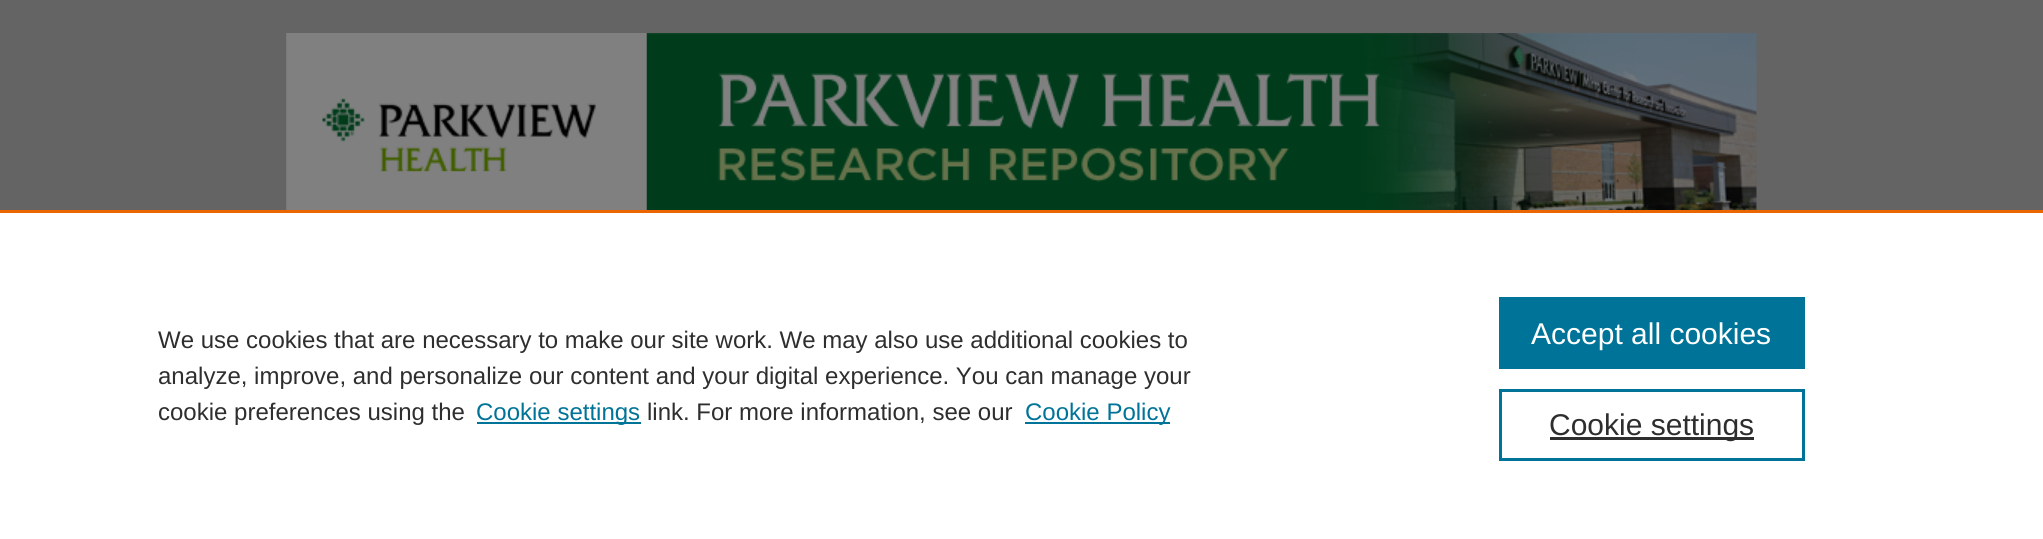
import math
import cairocffi as cairo

surface = cairo.ImageSurface(cairo.FORMAT_RGB24, 2043, 539)
ctx = cairo.Context(surface)
options = cairo.FontOptions()
options.set_hint_metrics(cairo.HINT_METRICS_OFF)
options.set_hint_style(cairo.HINT_STYLE_NONE)
ctx.set_font_options(options)
ctx.set_miter_limit(4)


def rgb(r, g, b):
    ctx.set_source_rgb(r / 255, g / 255, b / 255)


def face(family, size, italic, bold):
    ctx.select_font_face(family, cairo.FONT_SLANT_ITALIC if italic else cairo.FONT_SLANT_NORMAL, cairo.FONT_WEIGHT_BOLD if bold else cairo.FONT_WEIGHT_NORMAL)
    ctx.set_font_size(size)


def label(x, y, s):
    ctx.move_to(x, y)
    ctx.show_text(s)


def rect(x, y, w, h):
    ctx.rectangle(x, y, w, h)
    ctx.fill()


def image(path, x, y, w, h):
    ctx.save()
    ctx.set_source_surface(cairo.ImageSurface.create_from_png(path), x, y)
    ctx.rectangle(x, y, w, h)
    ctx.fill()
    ctx.restore()


rgb(100, 100, 100)
ctx.paint()
image('image0.png', 286, 33, 1471, 177)
image('image1.png', 286, 33, 361, 177)
rgb(255, 255, 255)
rect(0, 213, 2043, 326)
rgb(235, 101, 0)
rect(0, 210, 2043, 3)
face('Liberation Sans', 24, 0, 0)
rgb(46, 46, 46)
label(158, 348, 'We use cookies that are necessary to make our site work. We may also use additional cookies to')
label(158, 384, 'analyze, improve, and personalize our content and your digital experience. You can manage your')
label(158, 420, 'cookie preferences using the')
rgb(0, 115, 152)
rect(477, 422, 164, 2)
label(476, 420, 'Cookie settings')
rgb(46, 46, 46)
label(647, 420, 'link. For more information, see our')
rgb(0, 115, 152)
rect(1025, 422, 145, 2)
label(1025, 420, 'Cookie Policy')
rect(1499, 297, 306, 72)
face('Liberation Sans', 30, 0, 0)
rgb(255, 255, 255)
label(1531, 344, 'Accept all cookies')
ctx.rectangle(1500.5, 390.5, 303, 69)
rgb(0, 115, 152)
ctx.set_line_width(3)
ctx.stroke()
rgb(46, 46, 46)
rect(1550, 437, 204, 3)
label(1549, 435, 'Cookie settings')
surface.write_to_png('render.png')
